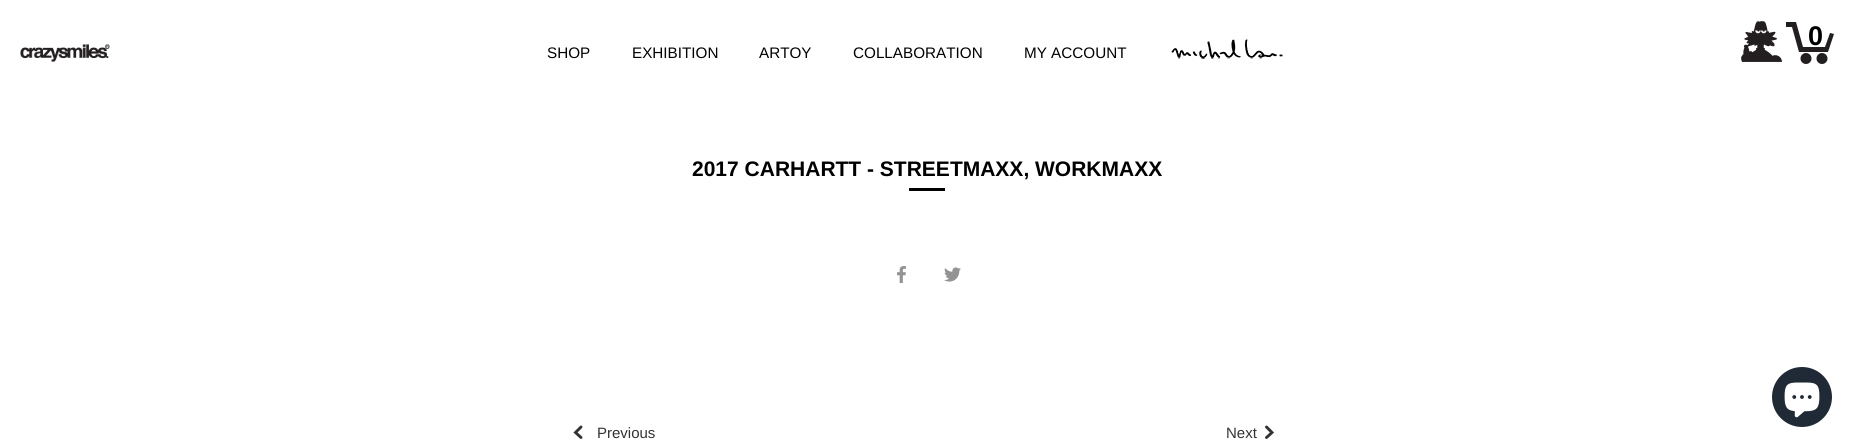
import math
import cairocffi as cairo

surface = cairo.ImageSurface(cairo.FORMAT_RGB24, 1854, 448)
ctx = cairo.Context(surface)
options = cairo.FontOptions()
options.set_hint_metrics(cairo.HINT_METRICS_OFF)
options.set_hint_style(cairo.HINT_STYLE_NONE)
ctx.set_font_options(options)
ctx.set_miter_limit(4)


def rgb(r, g, b):
    ctx.set_source_rgb(r / 255, g / 255, b / 255)


def face(family, size, italic, bold):
    ctx.select_font_face(family, cairo.FONT_SLANT_ITALIC if italic else cairo.FONT_SLANT_NORMAL, cairo.FONT_WEIGHT_BOLD if bold else cairo.FONT_WEIGHT_NORMAL)
    ctx.set_font_size(size)


def label(x, y, s):
    ctx.move_to(x, y)
    ctx.show_text(s)


def rect(x, y, w, h):
    ctx.rectangle(x, y, w, h)
    ctx.fill()


def image(path, x, y, w, h):
    ctx.save()
    ctx.set_source_surface(cairo.ImageSurface.create_from_png(path), x, y)
    ctx.rectangle(x, y, w, h)
    ctx.fill()
    ctx.restore()


rgb(255, 255, 255)
ctx.paint()
image('image0.png', 1741, 21, 41, 41)
rgb(35, 31, 32)
ctx.new_path()
ctx.move_to(1828, 52)
ctx.line_to(1799, 52)
ctx.line_to(1792, 27)
ctx.line_to(1786, 27)
ctx.line_to(1786, 22)
ctx.line_to(1796, 22)
ctx.line_to(1803, 47)
ctx.line_to(1825, 47)
ctx.line_to(1830, 33)
ctx.line_to(1834, 34)
ctx.close_path()
ctx.fill()
ctx.arc(1806, 58.5, 5.5, 0, 2 * math.pi)
ctx.fill()
ctx.arc(1822, 58.5, 5.5, 0, 2 * math.pi)
ctx.fill()
face('Liberation Sans', 27, 0, 1)
rgb(0, 0, 0)
label(1808, 45, '0')
image('image1.png', 20, 44, 90, 18)
face('Liberation Sans', 15.25, 0, 0)
label(547, 58, 'SHOP')
label(632, 58, 'EXHIBITION')
label(759, 58, 'ARTOY')
label(853, 58, 'COLLABORATION')
label(1024, 58, 'MY ACCOUNT')
image('image2.png', 1171, 39, 112, 20)
face('Liberation Sans', 21, 0, 1)
label(692, 176, '2017 CARHARTT - STREETMAXX, WORKMAXX')
rect(909, 188, 36, 3)
image('image3.png', 897, 266, 9, 17)
image('image4.png', 944, 267, 17, 15)
ctx.new_path()
ctx.move_to(581, 427)
ctx.line_to(575.5, 432.5)
ctx.line_to(581, 437.5)
rgb(51, 51, 51)
ctx.set_line_width(2.9)
ctx.set_line_cap(cairo.LINE_CAP_ROUND)
ctx.stroke()
face('Liberation Sans', 15, 0, 0)
label(597, 438, 'Previous')
label(1226, 438, 'Next')
ctx.new_path()
ctx.move_to(1266.5, 437.5)
ctx.line_to(1272, 432.5)
ctx.line_to(1266.5, 427)
ctx.stroke()
rgb(32, 42, 54)
ctx.arc(1802, 397, 30, 0, 2 * math.pi)
ctx.fill()
image('image5.png', 1784, 382, 36, 36)
surface.write_to_png('render.png')
